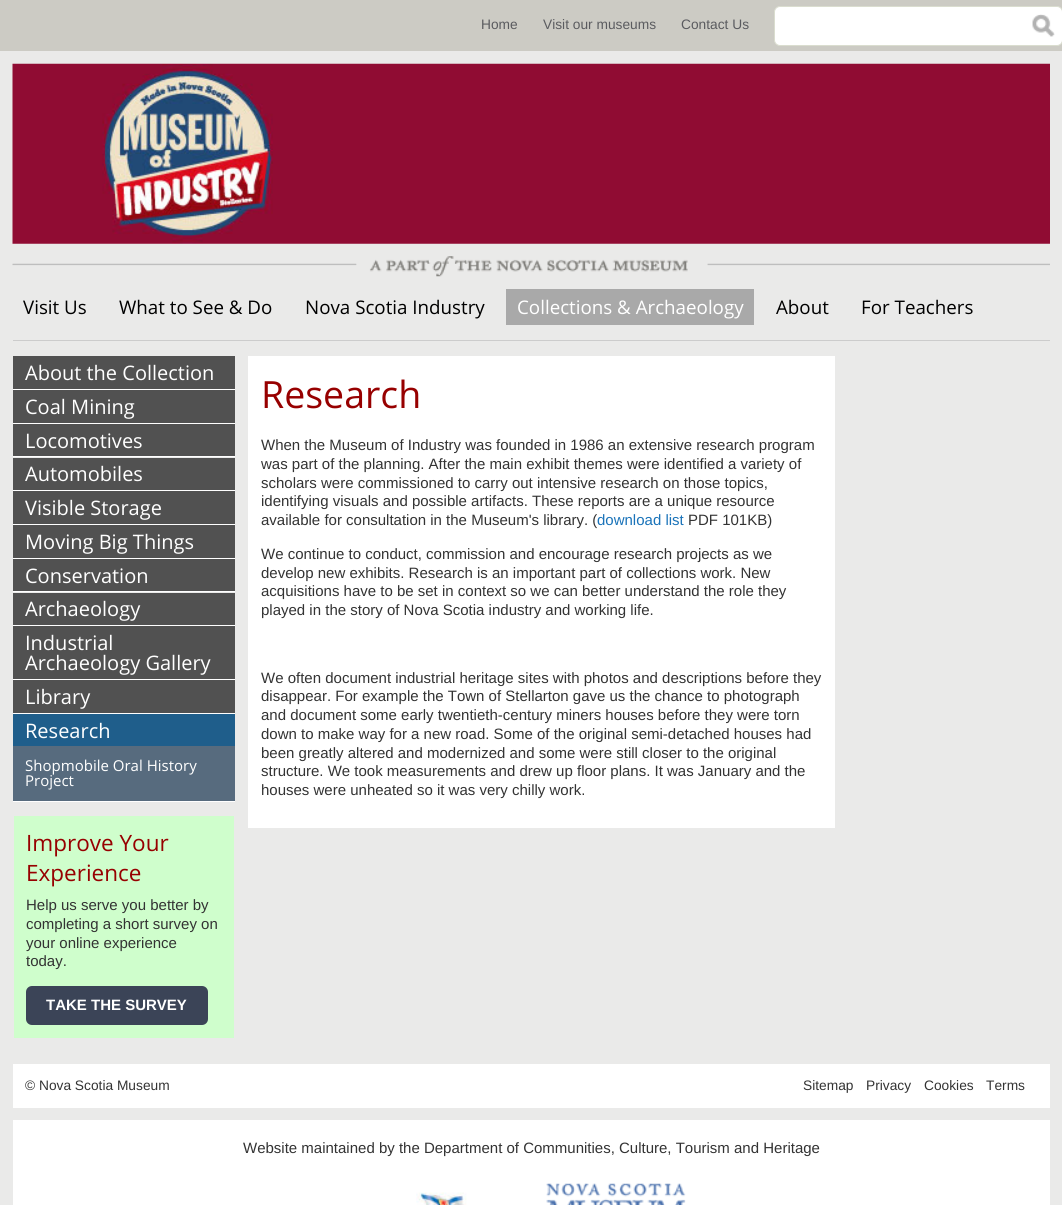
import math
import cairocffi as cairo

surface = cairo.ImageSurface(cairo.FORMAT_RGB24, 1062, 1205)
ctx = cairo.Context(surface)
options = cairo.FontOptions()
options.set_hint_metrics(cairo.HINT_METRICS_OFF)
options.set_hint_style(cairo.HINT_STYLE_NONE)
ctx.set_font_options(options)
ctx.set_miter_limit(4)


def rgb(r, g, b):
    ctx.set_source_rgb(r / 255, g / 255, b / 255)


def face(family, size, italic, bold):
    ctx.select_font_face(family, cairo.FONT_SLANT_ITALIC if italic else cairo.FONT_SLANT_NORMAL, cairo.FONT_WEIGHT_BOLD if bold else cairo.FONT_WEIGHT_NORMAL)
    ctx.set_font_size(size)


def label(x, y, s):
    ctx.move_to(x, y)
    ctx.show_text(s)


def rect(x, y, w, h):
    ctx.rectangle(x, y, w, h)
    ctx.fill()


def rrect(x, y, w, h, r):
    ctx.new_sub_path()
    for i, (u, v) in enumerate([(x + w - r, y + h - r), (x + r, y + h - r), (x + r, y + r), (x + w - r, y + r)]):
        ctx.arc(u, v, r, i * math.pi / 2, (i + 1) * math.pi / 2)
    ctx.close_path()


def image(path, x, y, w, h):
    ctx.save()
    ctx.set_source_surface(cairo.ImageSurface.create_from_png(path), x, y)
    ctx.rectangle(x, y, w, h)
    ctx.fill()
    ctx.restore()


rgb(234, 234, 233)
ctx.paint()
rgb(204, 203, 196)
rect(0, 0, 1062, 51)
face('Liberation Sans', 13.75, 0, 0)
rgb(90, 91, 95)
label(481, 29, 'Home')
label(543, 29, 'Visit our museums')
label(681, 29, 'Contact Us')
rgb(255, 255, 255)
rrect(774.5, 6.5, 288, 39, 5.5)
ctx.fill_preserve()
rgb(218, 221, 207)
ctx.set_line_width(1)
ctx.stroke()
image('image0.png', 1032, 14, 23, 23)
image('image1.png', 12, 63, 1038, 181)
image('image2.png', 12, 256, 1038, 21)
rgb(204, 204, 204)
rect(13, 340, 1037, 1)
face('Open Sans', 18.75, 0, 0)
rgb(0, 0, 0)
label(23, 314, 'Visit Us')
label(119, 314, 'What to See & Do')
label(305, 314, 'Nova Scotia Industry')
rgb(169, 169, 169)
rect(506, 289, 248, 36)
rgb(255, 255, 255)
label(517, 314, 'Collections & Archaeology')
rgb(0, 0, 0)
label(776, 314, 'About')
label(861, 314, 'For Teachers')
rgb(255, 255, 255)
rect(13, 389, 222, 1)
rgb(81, 81, 81)
rect(13, 356, 222, 33)
face('Open Sans', 20, 0, 0)
rgb(255, 255, 255)
label(25, 380, 'About the Collection')
rect(13, 423, 222, 1)
rgb(81, 81, 81)
rect(13, 390, 222, 33)
rgb(255, 255, 255)
label(25, 414, 'Coal Mining')
rect(13, 456, 222, 1)
rgb(81, 81, 81)
rect(13, 424, 222, 32)
rgb(255, 255, 255)
label(25, 448, 'Locomotives')
rect(13, 490, 222, 1)
rgb(81, 81, 81)
rect(13, 458, 222, 32)
rgb(255, 255, 255)
label(25, 481, 'Automobiles')
rect(13, 524, 222, 1)
rgb(81, 81, 81)
rect(13, 491, 222, 33)
rgb(255, 255, 255)
label(25, 515, 'Visible Storage')
rect(13, 558, 222, 1)
rgb(81, 81, 81)
rect(13, 525, 222, 33)
rgb(255, 255, 255)
label(25, 549, 'Moving Big Things')
rect(13, 591, 222, 1)
rgb(81, 81, 81)
rect(13, 559, 222, 32)
rgb(255, 255, 255)
label(25, 583, 'Conservation')
rect(13, 625, 222, 1)
rgb(81, 81, 81)
rect(13, 593, 222, 32)
rgb(255, 255, 255)
label(25, 616, 'Archaeology')
rect(13, 679, 222, 1)
rgb(81, 81, 81)
rect(13, 626, 222, 53)
rgb(255, 255, 255)
label(25, 650, 'Industrial')
label(25, 670, 'Archaeology Gallery')
rect(13, 713, 222, 1)
rgb(81, 81, 81)
rect(13, 680, 222, 33)
rgb(255, 255, 255)
label(25, 704, 'Library')
rect(13, 801, 222, 1)
rgb(31, 94, 139)
rect(13, 714, 222, 32)
rgb(255, 255, 255)
label(25, 738, 'Research')
rgb(87, 107, 126)
rect(13, 746, 222, 55)
face('Open Sans', 15, 0, 0)
rgb(255, 255, 255)
label(25, 771, 'Shopmobile Oral History')
label(25, 786, 'Project')
rgb(207, 254, 204)
rect(14, 816, 220, 222)
face('Open Sans', 22.5, 0, 0)
rgb(151, 0, 0)
label(26, 851, 'Improve Your')
label(26, 881, 'Experience')
face('Liberation Sans', 15, 0, 0)
rgb(51, 51, 51)
label(26, 910, 'Help us serve you better by')
label(26, 929, 'completing a short survey on')
label(26, 948, 'your online experience')
label(26, 966, 'today.')
rgb(59, 68, 87)
rrect(26, 986, 182, 39, 6)
ctx.fill()
face('Liberation Sans', 15, 0, 1)
rgb(255, 255, 255)
label(46, 1010, 'TAKE THE SURVEY')
rect(248, 356, 587, 472)
face('Open Sans', 37.5, 0, 0)
rgb(151, 0, 0)
label(261, 408, 'Research')
face('Liberation Sans', 15, 0, 0)
rgb(51, 51, 51)
label(261, 450, 'When the Museum of Industry was founded in 1986 an extensive research program')
label(261, 469, 'was part of the planning. After the main exhibit themes were identified a variety of')
label(261, 488, 'scholars were commissioned to carry out intensive research on those topics,')
label(261, 506, 'identifying visuals and possible artifacts. These reports are a unique resource')
label(261, 525, 'available for consultation in the Museum\'s library. (')
rgb(26, 115, 185)
label(597, 525, 'download list')
rgb(51, 51, 51)
label(688, 525, 'PDF 101KB)')
label(261, 559, 'We continue to conduct, commission and encourage research projects as we')
label(261, 578, 'develop new exhibits. Research is an important part of collections work. New')
label(261, 596, 'acquisitions have to be set in context so we can better understand the role they')
label(261, 615, 'played in the story of Nova Scotia industry and working life.')
label(261, 683, 'We often document industrial heritage sites with photos and descriptions before they')
label(261, 701, 'disappear. For example the Town of Stellarton gave us the chance to photograph')
label(261, 720, 'and document some early twentieth-century miners houses before they were torn')
label(261, 739, 'down to make way for a new road. Some of the original semi-detached houses had')
label(261, 758, 'been greatly altered and modernized and some were still closer to the original')
label(261, 776, 'structure. We took measurements and drew up floor plans. It was January and the')
label(261, 795, 'houses were unheated so it was very chilly work.')
rgb(255, 255, 255)
rect(13, 1064, 1037, 44)
face('Liberation Sans', 13.75, 0, 0)
rgb(51, 51, 51)
label(25, 1090, '© Nova Scotia Museum')
label(803, 1090, 'Sitemap')
label(866, 1090, 'Privacy')
label(924, 1090, 'Cookies')
label(986, 1090, 'Terms')
rgb(255, 255, 255)
rect(13, 1120, 1037, 85)
face('Liberation Sans', 15, 0, 0)
rgb(51, 51, 51)
label(243, 1153, 'Website maintained by the Department of Communities, Culture, Tourism and Heritage')
image('image3.png', 416, 1192, 51, 13)
image('image4.png', 546, 1183, 140, 22)
surface.write_to_png('render.png')
